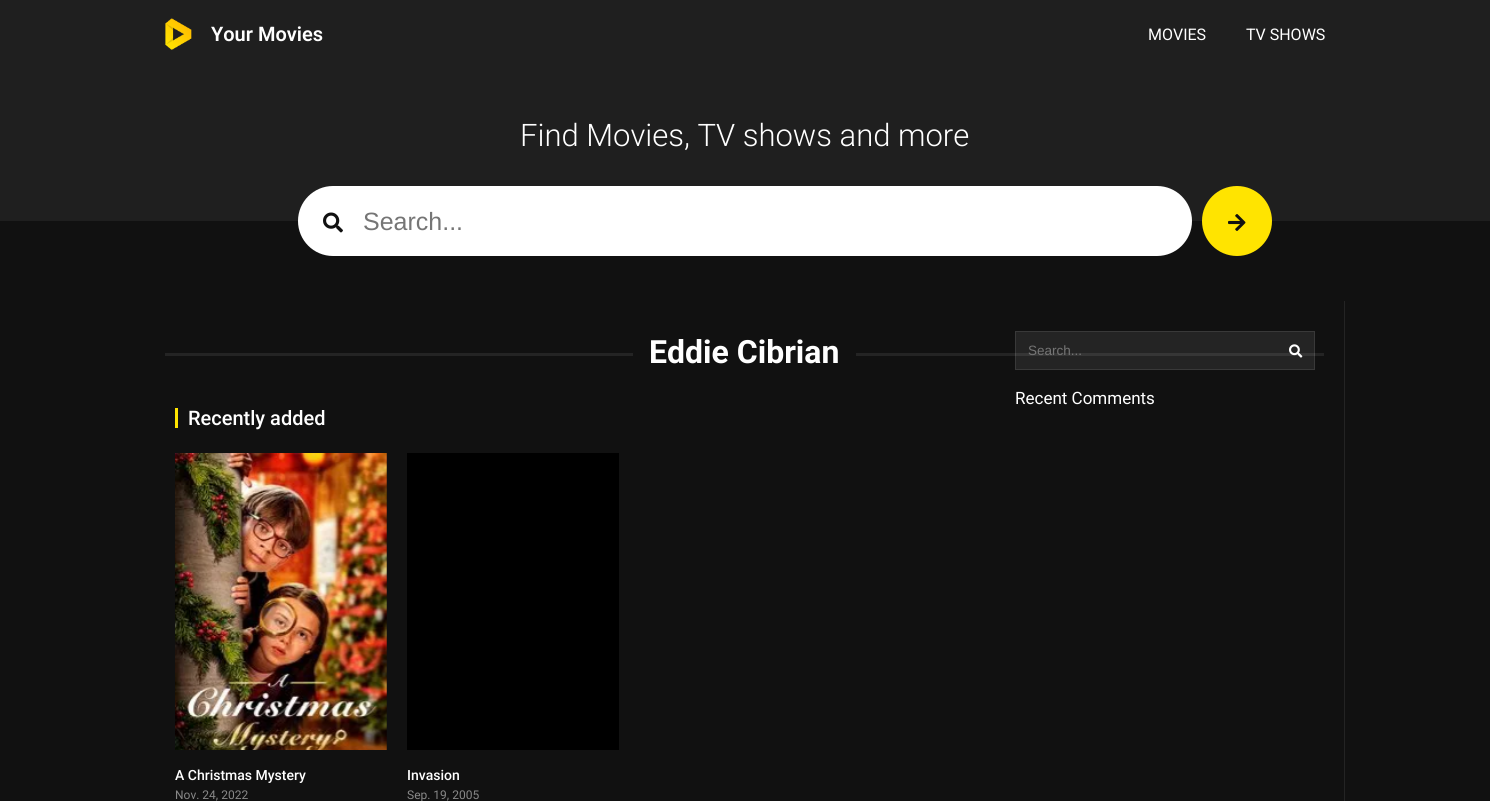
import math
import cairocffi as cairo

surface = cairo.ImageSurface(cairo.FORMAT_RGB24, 1490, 801)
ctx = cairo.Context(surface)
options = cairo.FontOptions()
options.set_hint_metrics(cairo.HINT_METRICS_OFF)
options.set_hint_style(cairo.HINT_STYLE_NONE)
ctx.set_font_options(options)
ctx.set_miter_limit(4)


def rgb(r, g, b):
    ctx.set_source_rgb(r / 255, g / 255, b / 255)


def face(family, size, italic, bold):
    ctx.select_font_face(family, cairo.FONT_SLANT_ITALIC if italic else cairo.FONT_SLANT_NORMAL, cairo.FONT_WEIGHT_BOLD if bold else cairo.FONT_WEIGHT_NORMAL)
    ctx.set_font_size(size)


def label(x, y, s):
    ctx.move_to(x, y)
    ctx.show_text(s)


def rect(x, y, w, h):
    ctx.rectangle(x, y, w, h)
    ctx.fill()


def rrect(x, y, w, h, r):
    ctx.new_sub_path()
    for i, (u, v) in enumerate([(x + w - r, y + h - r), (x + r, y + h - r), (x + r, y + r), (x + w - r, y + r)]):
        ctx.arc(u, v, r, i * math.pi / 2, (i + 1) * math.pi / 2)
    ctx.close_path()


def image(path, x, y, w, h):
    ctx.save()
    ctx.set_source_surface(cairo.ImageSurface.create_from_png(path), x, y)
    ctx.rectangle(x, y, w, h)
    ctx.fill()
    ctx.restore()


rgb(17, 17, 17)
ctx.paint()
rgb(36, 36, 36)
rect(1015, 331, 300, 39)
rgb(31, 31, 31)
rect(0, 0, 1490, 221)
image('image0.png', 165, 18, 27, 32)
face('Roboto SemiBold', 20, 0, 0)
rgb(255, 255, 255)
label(211, 41, 'Your Movies')
face('Roboto', 16, 0, 0)
label(1148, 40, 'MOVIES')
label(1246, 40, 'TV SHOWS')
face('Roboto Light', 31, 0, 0)
label(520, 146, 'Find Movies, TV shows and more')
rrect(298, 186, 894, 70, 35)
ctx.fill()
image('image1.png', 323, 212, 20, 21)
face('Liberation Sans', 25, 0, 0)
rgb(117, 117, 117)
label(363, 230, 'Search...')
rgb(255, 228, 0)
ctx.new_path()
ctx.arc(1237, 221, 34, 0, 2 * math.pi)
ctx.fill_preserve()
ctx.stroke()
image('image2.png', 1228, 214, 18, 17)
rgb(36, 36, 36)
rect(1344, 301, 1, 500)
rect(165, 353, 468, 3)
face('Roboto', 32, 0, 1)
rgb(255, 255, 255)
label(649, 363, 'Eddie Cibrian')
rgb(36, 36, 36)
rect(856, 353, 468, 3)
rgb(54, 54, 54)
rect(1015, 353, 300, 3)
rgb(255, 228, 0)
rect(175, 408, 3, 20)
face('Roboto Medium', 20, 0, 0)
rgb(255, 255, 255)
label(188, 425, 'Recently added')
image('image3.png', 175, 453, 212, 297)
face('Roboto Medium', 14, 0, 0)
label(175, 780, 'A Christmas Mystery')
face('Roboto', 12, 0, 0)
rgb(136, 136, 136)
label(175, 799, 'Nov. 24, 2022')
rgb(0, 0, 0)
rect(407, 453, 212, 297)
face('Roboto Medium', 14, 0, 0)
rgb(255, 255, 255)
label(407, 780, 'Invasion')
face('Roboto', 12, 0, 0)
rgb(136, 136, 136)
label(407, 799, 'Sep. 19, 2005')
ctx.rectangle(1015.5, 331.5, 299, 38)
ctx.set_source_rgba(1, 1, 1, 0.1)
ctx.set_line_width(1)
ctx.stroke()
face('Liberation Sans', 13.5, 0, 0)
rgb(117, 117, 117)
label(1028, 355, 'Search...')
image('image4.png', 1289, 344, 14, 14)
face('Roboto', 17, 0, 0)
rgb(255, 255, 255)
label(1015, 404, 'Recent Comments')
surface.write_to_png('render.png')
